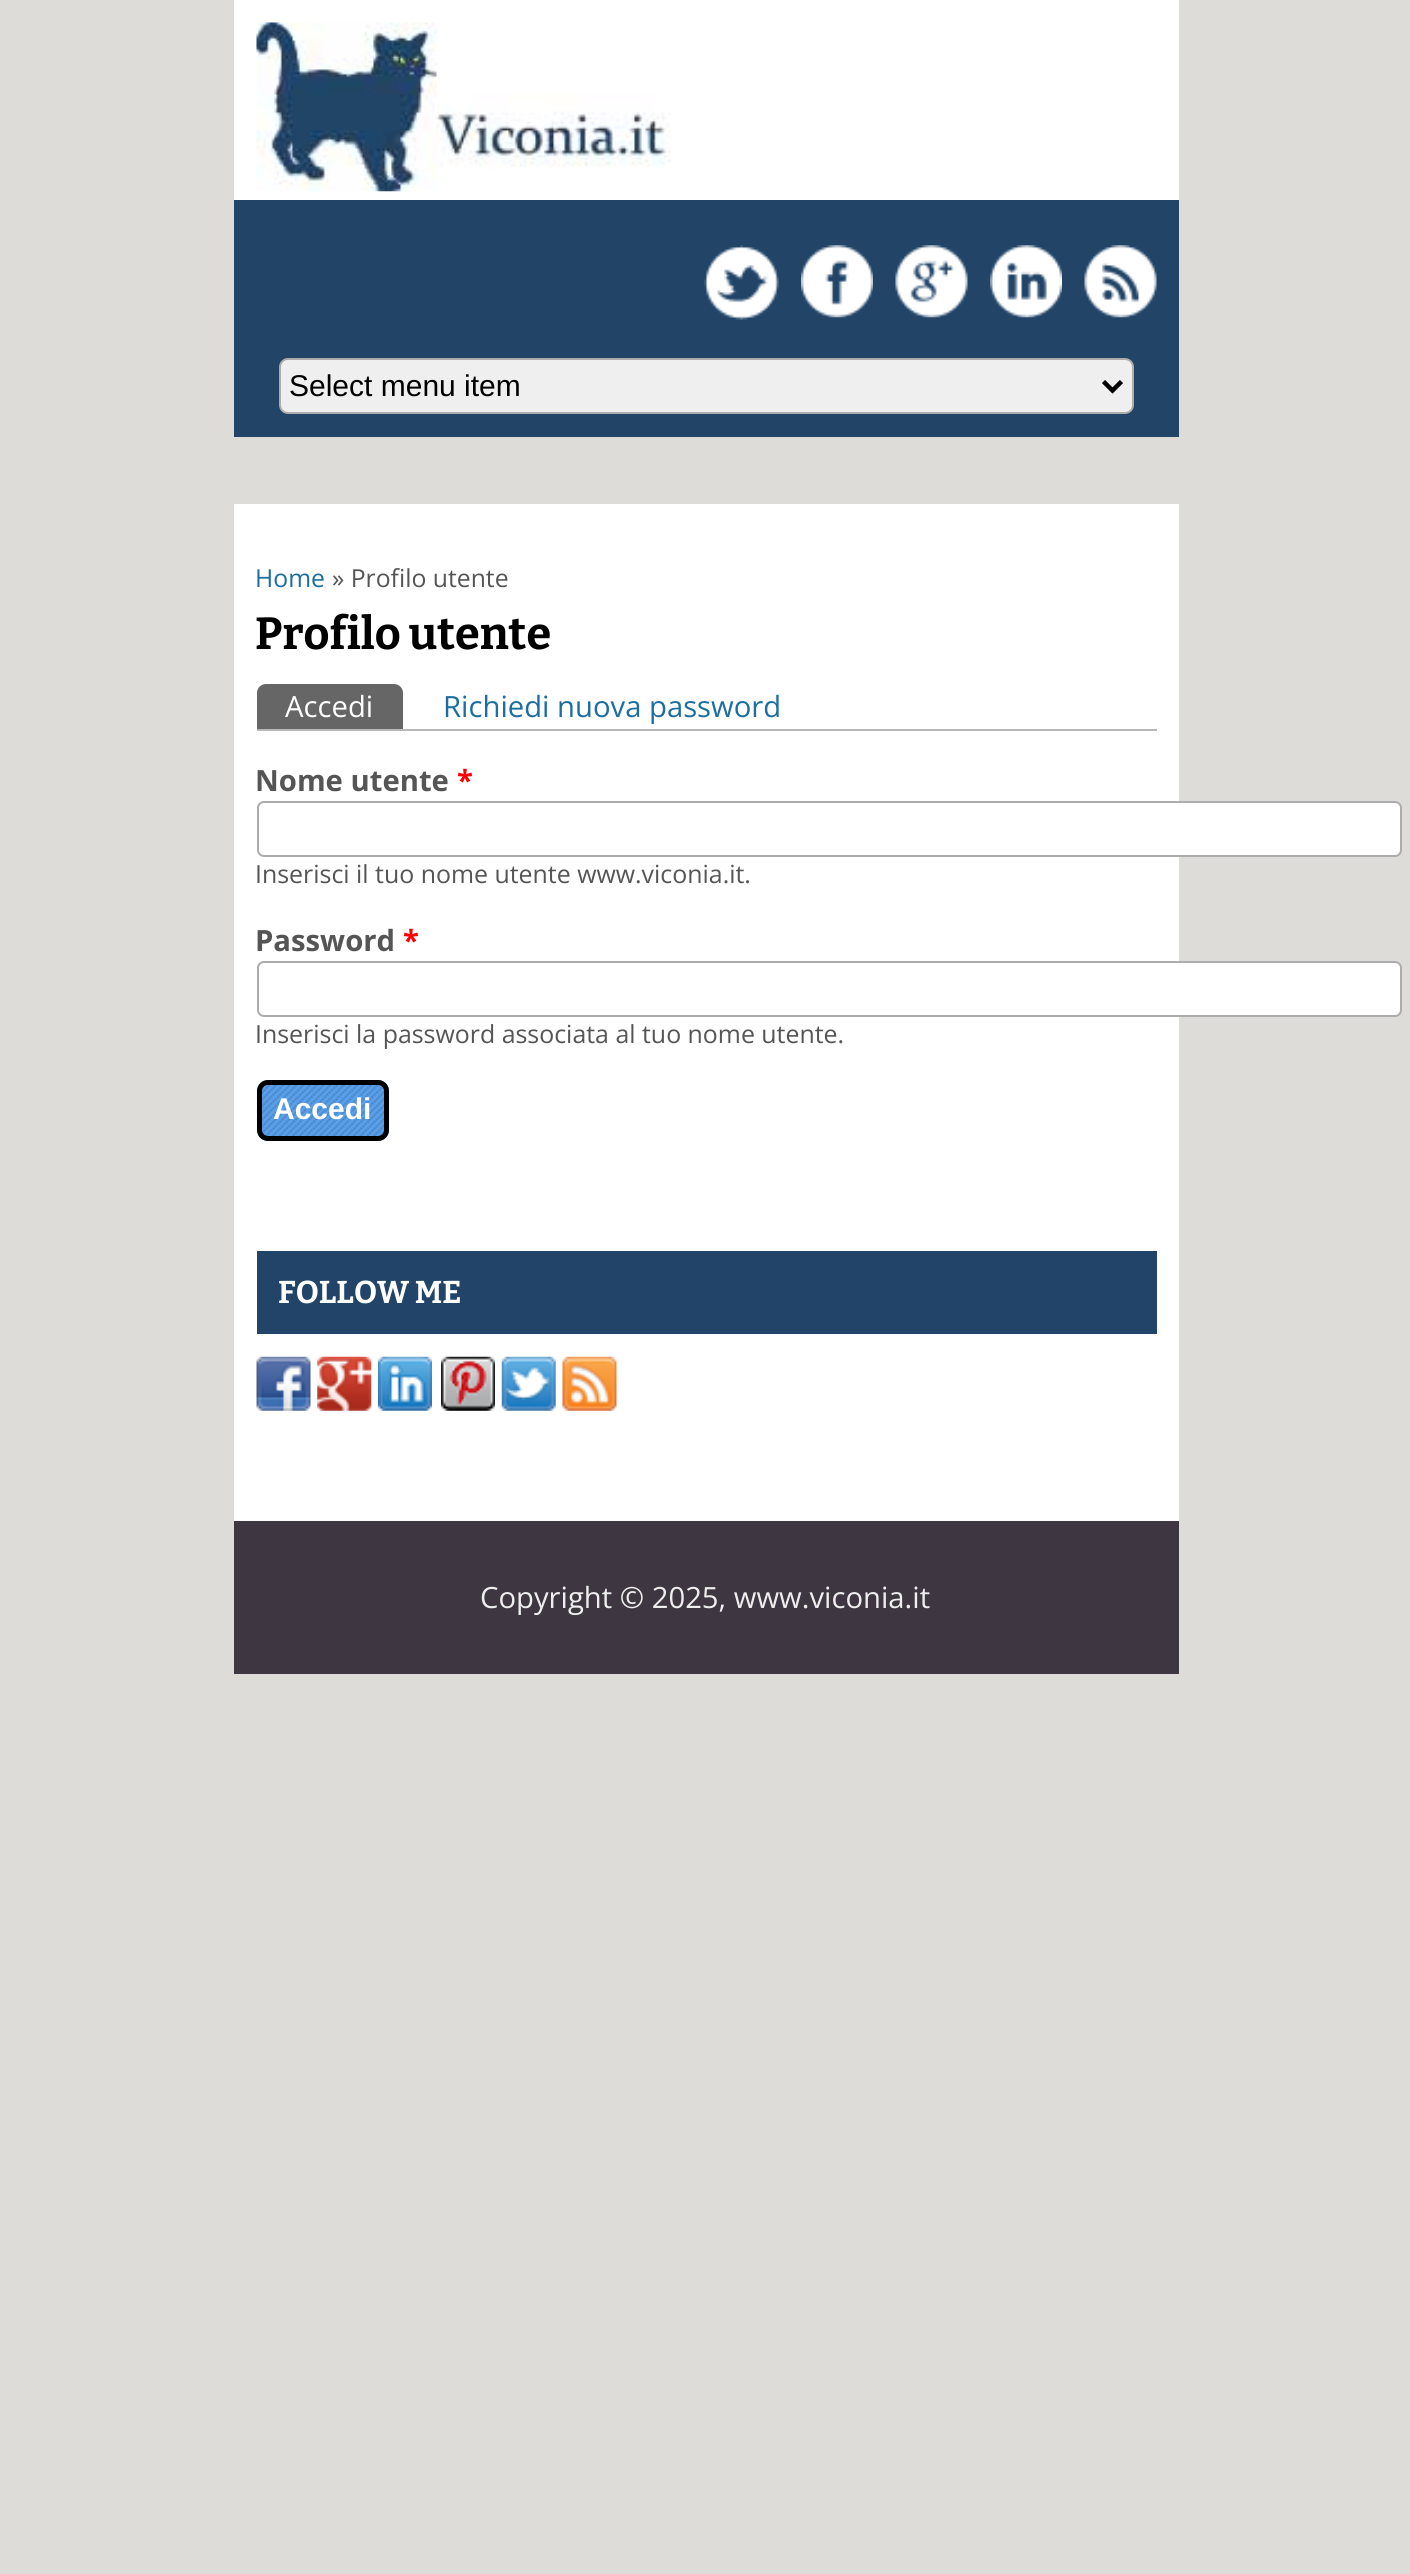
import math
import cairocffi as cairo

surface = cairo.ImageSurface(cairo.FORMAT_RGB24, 1410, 2574)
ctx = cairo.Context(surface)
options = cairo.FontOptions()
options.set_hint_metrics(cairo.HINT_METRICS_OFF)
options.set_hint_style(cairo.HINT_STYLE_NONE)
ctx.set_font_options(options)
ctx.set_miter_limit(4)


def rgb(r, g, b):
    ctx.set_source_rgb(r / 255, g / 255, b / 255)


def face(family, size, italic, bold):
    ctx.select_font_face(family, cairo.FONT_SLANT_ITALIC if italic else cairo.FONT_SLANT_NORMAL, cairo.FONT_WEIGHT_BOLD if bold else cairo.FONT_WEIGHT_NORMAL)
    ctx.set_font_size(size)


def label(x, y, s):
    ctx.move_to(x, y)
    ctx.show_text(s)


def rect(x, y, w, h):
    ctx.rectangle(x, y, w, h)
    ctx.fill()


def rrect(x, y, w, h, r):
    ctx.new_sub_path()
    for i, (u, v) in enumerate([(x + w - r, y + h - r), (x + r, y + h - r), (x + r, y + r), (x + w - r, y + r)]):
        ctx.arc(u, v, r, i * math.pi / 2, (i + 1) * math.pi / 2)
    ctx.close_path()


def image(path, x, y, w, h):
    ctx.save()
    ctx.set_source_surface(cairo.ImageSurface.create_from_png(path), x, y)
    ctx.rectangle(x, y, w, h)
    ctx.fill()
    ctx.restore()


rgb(222, 220, 217)
ctx.paint()
rgb(255, 255, 255)
rect(234, 0, 945, 200)
image('image0.png', 256, 22, 415, 170)
rgb(33, 68, 103)
rect(234, 200, 945, 237)
image('image1.png', 704, 245, 75, 75)
image('image2.png', 801, 245, 72, 73)
image('image3.png', 895, 245, 73, 73)
image('image4.png', 990, 245, 72, 73)
image('image5.png', 1084, 245, 73, 73)
rgb(239, 239, 239)
rrect(280, 359, 853, 54, 8)
ctx.fill_preserve()
rgb(172, 172, 172)
ctx.stroke()
ctx.new_path()
ctx.move_to(1103.5, 381.5)
ctx.line_to(1112.5, 390.5)
ctx.line_to(1121.5, 381.5)
rgb(0, 0, 0)
ctx.set_line_width(4.5)
ctx.stroke()
face('Liberation Sans', 30, 0, 0)
label(289, 396, 'Select menu item')
rgb(255, 255, 255)
rect(234, 504, 945, 1017)
face('Open Sans', 24.75, 0, 0)
rgb(28, 110, 160)
label(255, 587, 'Home')
rgb(85, 85, 85)
label(332, 587, '» Profilo utente')
face('Bitter', 45, 0, 1)
rgb(0, 0, 0)
label(255, 649, 'Profilo utente')
rgb(183, 183, 183)
rect(257, 729, 900, 2)
rgb(102, 102, 102)
ctx.new_path()
ctx.move_to(266, 684)
ctx.line_to(394, 684)
ctx.curve_to(399, 684, 403, 688, 403, 693)
ctx.line_to(403, 729)
ctx.line_to(257, 729)
ctx.line_to(257, 693)
ctx.curve_to(257, 688, 261, 684, 266, 684)
ctx.close_path()
ctx.fill()
face('Open Sans', 29.25, 0, 0)
rgb(255, 255, 255)
label(285, 717, 'Accedi')
rgb(28, 110, 160)
label(443, 717, 'Richiedi nuova password')
face('Open Sans', 29.25, 0, 1)
rgb(85, 85, 85)
label(255, 791, 'Nome utente')
rgb(255, 0, 0)
label(457, 791, '*')
rgb(255, 255, 255)
rrect(258, 802, 1143, 54, 6)
ctx.fill_preserve()
rgb(172, 172, 172)
ctx.set_line_width(2)
ctx.stroke()
face('Open Sans', 24.9, 0, 0)
rgb(85, 85, 85)
label(255, 883, 'Inserisci il tuo nome utente www.viconia.it.')
face('Open Sans', 29.25, 0, 1)
label(255, 951, 'Password')
rgb(255, 0, 0)
label(403, 951, '*')
rgb(255, 255, 255)
rrect(258, 962, 1143, 54, 6)
ctx.fill_preserve()
rgb(172, 172, 172)
ctx.stroke()
face('Open Sans', 24.9, 0, 0)
rgb(85, 85, 85)
label(255, 1043, 'Inserisci la password associata al tuo nome utente.')
rgb(90, 162, 239)
rrect(257, 1080, 132, 61, 11)
ctx.fill()
image('image6.png', 256, 1080, 133, 61)
rrect(259.5, 1082.5, 127, 56, 8.5)
rgb(0, 0, 0)
ctx.set_line_width(5)
ctx.stroke()
face('Liberation Sans', 30, 0, 1)
rgb(255, 255, 255)
label(273, 1119, 'Accedi')
rgb(33, 68, 104)
rect(257, 1251, 900, 83)
face('Bitter', 31.5, 0, 1)
rgb(255, 255, 255)
label(278, 1303, 'FOLLOW ME')
image('image7.png', 256, 1356, 55, 55)
image('image8.png', 317, 1356, 55, 55)
image('image9.png', 378, 1356, 54, 55)
image('image10.png', 441, 1356, 54, 55)
image('image11.png', 501, 1356, 55, 55)
image('image12.png', 562, 1356, 55, 55)
rgb(62, 55, 66)
rect(234, 1521, 945, 153)
face('Open Sans', 29.25, 0, 0)
rgb(238, 238, 238)
label(480, 1608, 'Copyright © 2025, www.viconia.it')
surface.write_to_png('render.png')
